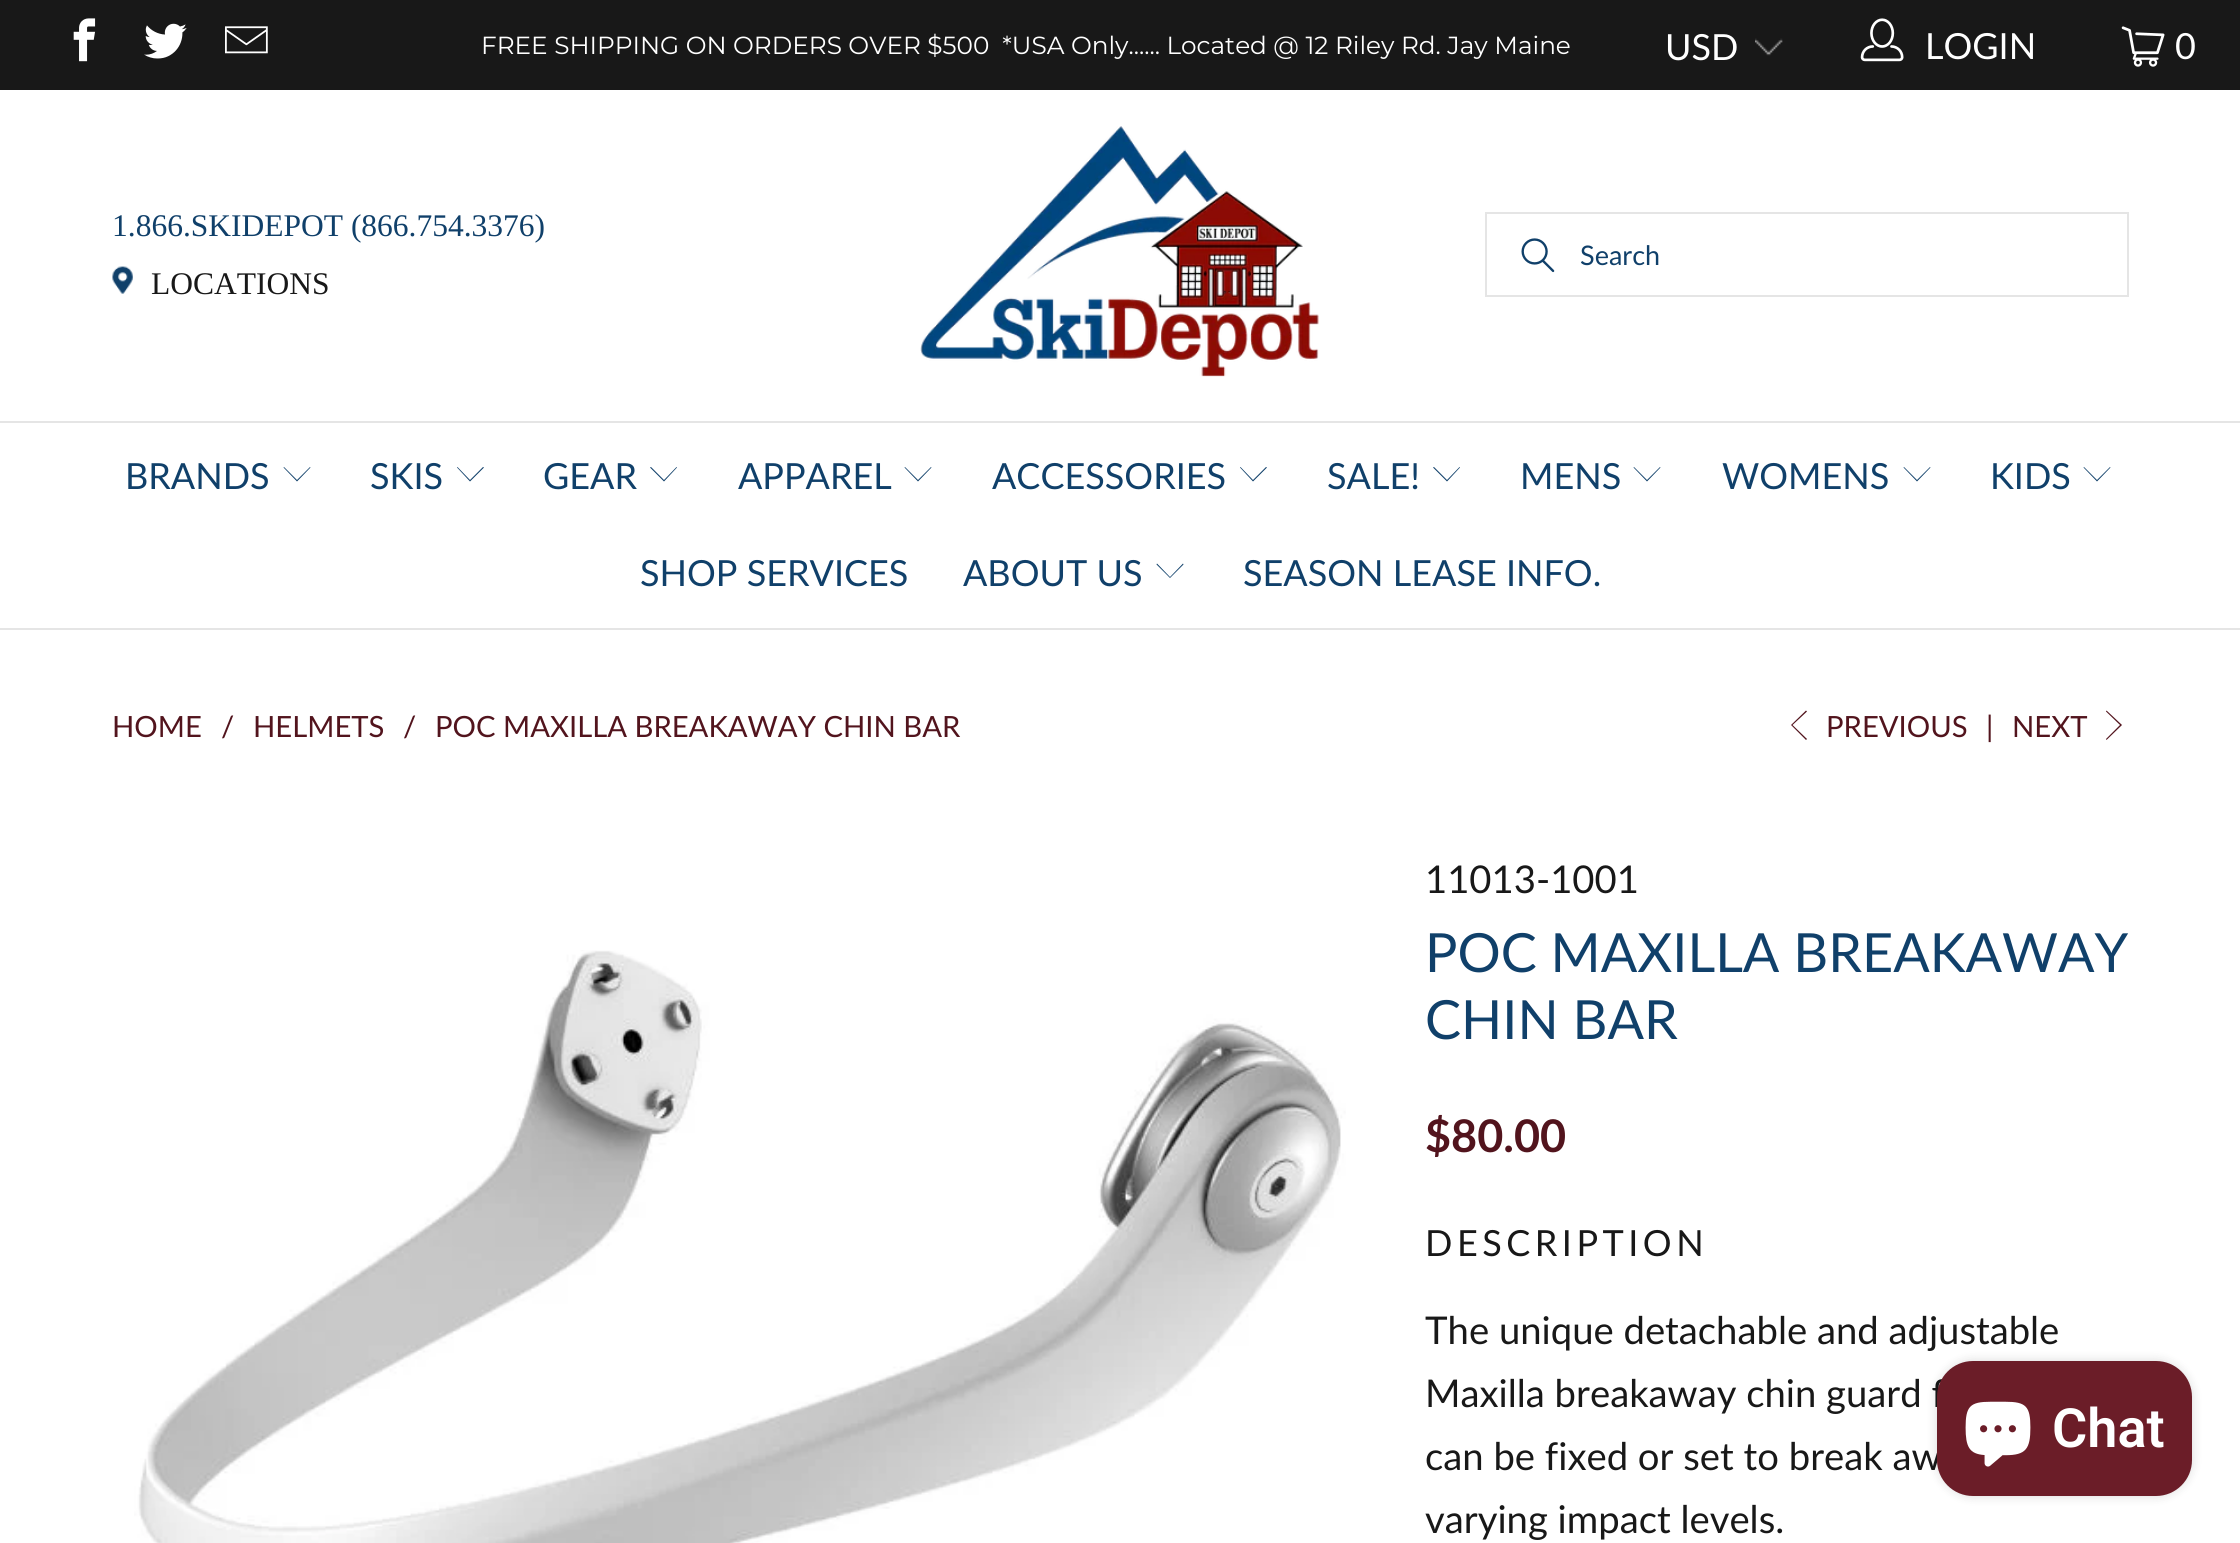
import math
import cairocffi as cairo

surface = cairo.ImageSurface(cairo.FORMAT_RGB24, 2240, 1543)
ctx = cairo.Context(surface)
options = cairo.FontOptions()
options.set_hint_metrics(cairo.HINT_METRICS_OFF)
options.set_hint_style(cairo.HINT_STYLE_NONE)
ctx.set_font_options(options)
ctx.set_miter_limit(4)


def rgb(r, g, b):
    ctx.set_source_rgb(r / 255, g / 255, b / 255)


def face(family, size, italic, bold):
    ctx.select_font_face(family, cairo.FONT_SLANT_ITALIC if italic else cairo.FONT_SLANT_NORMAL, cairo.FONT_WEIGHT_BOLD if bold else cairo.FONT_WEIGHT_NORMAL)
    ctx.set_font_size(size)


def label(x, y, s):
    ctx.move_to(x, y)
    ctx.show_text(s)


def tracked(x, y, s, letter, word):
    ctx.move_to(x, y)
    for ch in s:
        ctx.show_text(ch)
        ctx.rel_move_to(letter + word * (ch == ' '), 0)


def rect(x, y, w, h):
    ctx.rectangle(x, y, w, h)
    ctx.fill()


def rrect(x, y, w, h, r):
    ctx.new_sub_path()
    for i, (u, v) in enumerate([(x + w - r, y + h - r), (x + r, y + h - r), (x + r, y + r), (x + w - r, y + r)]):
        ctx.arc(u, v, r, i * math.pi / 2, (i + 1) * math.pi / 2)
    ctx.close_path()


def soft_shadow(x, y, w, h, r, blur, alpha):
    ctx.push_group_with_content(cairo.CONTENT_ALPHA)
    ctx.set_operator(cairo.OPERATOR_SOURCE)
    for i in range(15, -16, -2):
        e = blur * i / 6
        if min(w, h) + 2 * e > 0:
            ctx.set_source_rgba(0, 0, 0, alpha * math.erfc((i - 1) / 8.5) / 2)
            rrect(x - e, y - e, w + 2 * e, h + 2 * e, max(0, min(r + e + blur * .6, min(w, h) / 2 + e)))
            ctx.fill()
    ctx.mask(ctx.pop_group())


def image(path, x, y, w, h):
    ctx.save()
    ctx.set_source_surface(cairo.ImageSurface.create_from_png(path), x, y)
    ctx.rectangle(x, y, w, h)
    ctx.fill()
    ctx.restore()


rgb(255, 255, 255)
ctx.paint()
rgb(24, 24, 24)
rect(0, 0, 2240, 90)
image('image0.png', 73, 18, 23, 44)
image('image1.png', 144, 23, 43, 36)
image('image2.png', 225, 26, 43, 28)
face('Montserrat', 24.75, 0, 0)
rgb(255, 255, 255)
label(481, 54, 'FREE SHIPPING ON ORDERS OVER $500  *USA Only...... Located @ 12 Riley Rd. Jay Maine')
image('image3.png', 1755, 38, 28, 18)
face('Lato', 36, 0, 0)
label(1665, 60, 'USD')
image('image4.png', 1860, 18, 44, 44)
label(1925, 59, 'LOGIN')
image('image5.png', 2121, 26, 44, 41)
label(2175, 59, '0')
rgb(229, 229, 229)
rect(0, 421, 2240, 2)
face('Liberation Serif', 31.5, 0, 0)
rgb(16, 64, 106)
label(112, 236, '1.866.SKIDEPOT (866.754.3376)')
image('image6.png', 112, 266, 21, 28)
rgb(24, 24, 24)
label(151, 294, 'LOCATIONS')
image('image7.png', 920, 126, 399, 251)
image('image8.png', 1521, 238, 34, 35)
ctx.rectangle(1486, 213, 642, 83)
rgb(229, 229, 229)
ctx.stroke()
face('Lato', 27, 0, 0)
rgb(16, 64, 106)
label(1580, 265, 'Search')
rgb(229, 229, 229)
rect(0, 628, 2240, 2)
face('Lato', 36, 0, 0)
rgb(16, 64, 106)
label(125, 489, 'BRANDS')
ctx.new_path()
ctx.move_to(297, 481.5)
ctx.line_to(283.5, 467.5)
ctx.line_to(284, 467)
ctx.line_to(297, 480)
ctx.line_to(310, 467)
ctx.line_to(310.5, 467.5)
ctx.close_path()
ctx.fill()
label(370, 489, 'SKIS')
ctx.new_path()
ctx.move_to(470, 481.5)
ctx.line_to(457, 467.5)
ctx.line_to(457.5, 467)
ctx.line_to(470, 480)
ctx.line_to(483, 467)
ctx.line_to(484, 467.5)
ctx.close_path()
ctx.fill()
label(543, 489, 'GEAR')
ctx.new_path()
ctx.move_to(664, 481.5)
ctx.line_to(650, 467.5)
ctx.line_to(651, 467)
ctx.line_to(664, 480)
ctx.line_to(676.5, 467)
ctx.line_to(677, 467.5)
ctx.close_path()
ctx.fill()
label(738, 489, 'APPAREL')
ctx.new_path()
ctx.move_to(918, 481.5)
ctx.line_to(904.5, 467.5)
ctx.line_to(905, 467)
ctx.line_to(918, 480)
ctx.line_to(931, 467)
ctx.line_to(931.5, 467.5)
ctx.close_path()
ctx.fill()
label(992, 489, 'ACCESSORIES')
ctx.new_path()
ctx.move_to(1253, 481.5)
ctx.line_to(1240, 467.5)
ctx.line_to(1240.5, 467)
ctx.line_to(1253, 480)
ctx.line_to(1266, 467)
ctx.line_to(1267, 467.5)
ctx.close_path()
ctx.fill()
label(1327, 489, 'SALE!')
ctx.new_path()
ctx.move_to(1447, 481.5)
ctx.line_to(1433, 467.5)
ctx.line_to(1434, 467)
ctx.line_to(1447, 480)
ctx.line_to(1459.5, 467)
ctx.line_to(1460, 467.5)
ctx.close_path()
ctx.fill()
label(1520, 489, 'MENS')
ctx.new_path()
ctx.move_to(1647, 481.5)
ctx.line_to(1633.5, 467.5)
ctx.line_to(1634, 467)
ctx.line_to(1647, 480)
ctx.line_to(1660, 467)
ctx.line_to(1660.5, 467.5)
ctx.close_path()
ctx.fill()
label(1722, 489, 'WOMENS')
ctx.new_path()
ctx.move_to(1917, 481.5)
ctx.line_to(1903.5, 467.5)
ctx.line_to(1904, 467)
ctx.line_to(1917, 480)
ctx.line_to(1930, 467)
ctx.line_to(1930.5, 467.5)
ctx.close_path()
ctx.fill()
label(1990, 489, 'KIDS')
ctx.new_path()
ctx.move_to(2097, 481.5)
ctx.line_to(2083.5, 467.5)
ctx.line_to(2084, 467)
ctx.line_to(2097, 480)
ctx.line_to(2110, 467)
ctx.line_to(2110.5, 467.5)
ctx.close_path()
ctx.fill()
label(640, 586, 'SHOP SERVICES')
label(963, 586, 'ABOUT US')
ctx.new_path()
ctx.move_to(1170, 578)
ctx.line_to(1156.5, 564.5)
ctx.line_to(1157, 563.5)
ctx.line_to(1170, 577)
ctx.line_to(1183, 563.5)
ctx.line_to(1183.5, 564.5)
ctx.close_path()
ctx.fill()
label(1243, 586, 'SEASON LEASE INFO.')
face('Lato', 29.25, 0, 0)
rgb(82, 20, 29)
label(112, 737, 'HOME')
label(221, 737, '/')
label(253, 737, 'HELMETS')
label(403, 737, '/')
label(435, 737, 'POC MAXILLA BREAKAWAY CHIN BAR')
ctx.new_path()
ctx.move_to(1806, 740)
ctx.line_to(1791, 725)
ctx.line_to(1806, 710.5)
ctx.line_to(1807, 711.5)
ctx.line_to(1792.5, 725)
ctx.line_to(1807, 739)
ctx.close_path()
ctx.fill()
label(1826, 737, 'PREVIOUS')
label(1986, 737, '|')
label(2012, 737, 'NEXT')
ctx.new_path()
ctx.move_to(2106.5, 740)
ctx.line_to(2106, 739)
ctx.line_to(2120, 725)
ctx.line_to(2106, 711.5)
ctx.line_to(2106.5, 710.5)
ctx.line_to(2122, 725)
ctx.close_path()
ctx.fill()
image('image9.png', 134, 950, 1212, 593)
face('Lato', 38.25, 0, 0)
rgb(24, 24, 24)
label(1425, 893, '11013-1001')
face('Lato', 54, 0, 0)
rgb(16, 64, 106)
label(1425, 972, 'POC MAXILLA BREAKAWAY')
label(1425, 1039, 'CHIN BAR')
face('Lato', 45, 0, 1)
rgb(82, 20, 29)
label(1425, 1152, '$80.00')
face('Lato', 36, 0, 0)
rgb(24, 24, 24)
tracked(1425, 1256, 'DESCRIPTION', 4.5, 0)
face('Lato', 38.25, 0, 0)
label(1425, 1344, 'The unique detachable and adjustable')
label(1425, 1407, 'Maxilla breakaway chin guard f')
label(1425, 1470, 'can be fixed or set to break aw')
label(1425, 1533, 'varying impact levels.')
rgb(0, 0, 0)
soft_shadow(1937, 1361, 255, 135, 36, 5.5, 0.15)
rgb(107, 29, 40)
rrect(1937, 1361, 255, 135, 36)
ctx.fill()
image('image10.png', 1965, 1401, 66, 66)
face('Roboto SemiBold', 54, 0, 0)
rgb(255, 255, 255)
label(2052, 1447, 'Chat')
surface.write_to_png('render.png')
